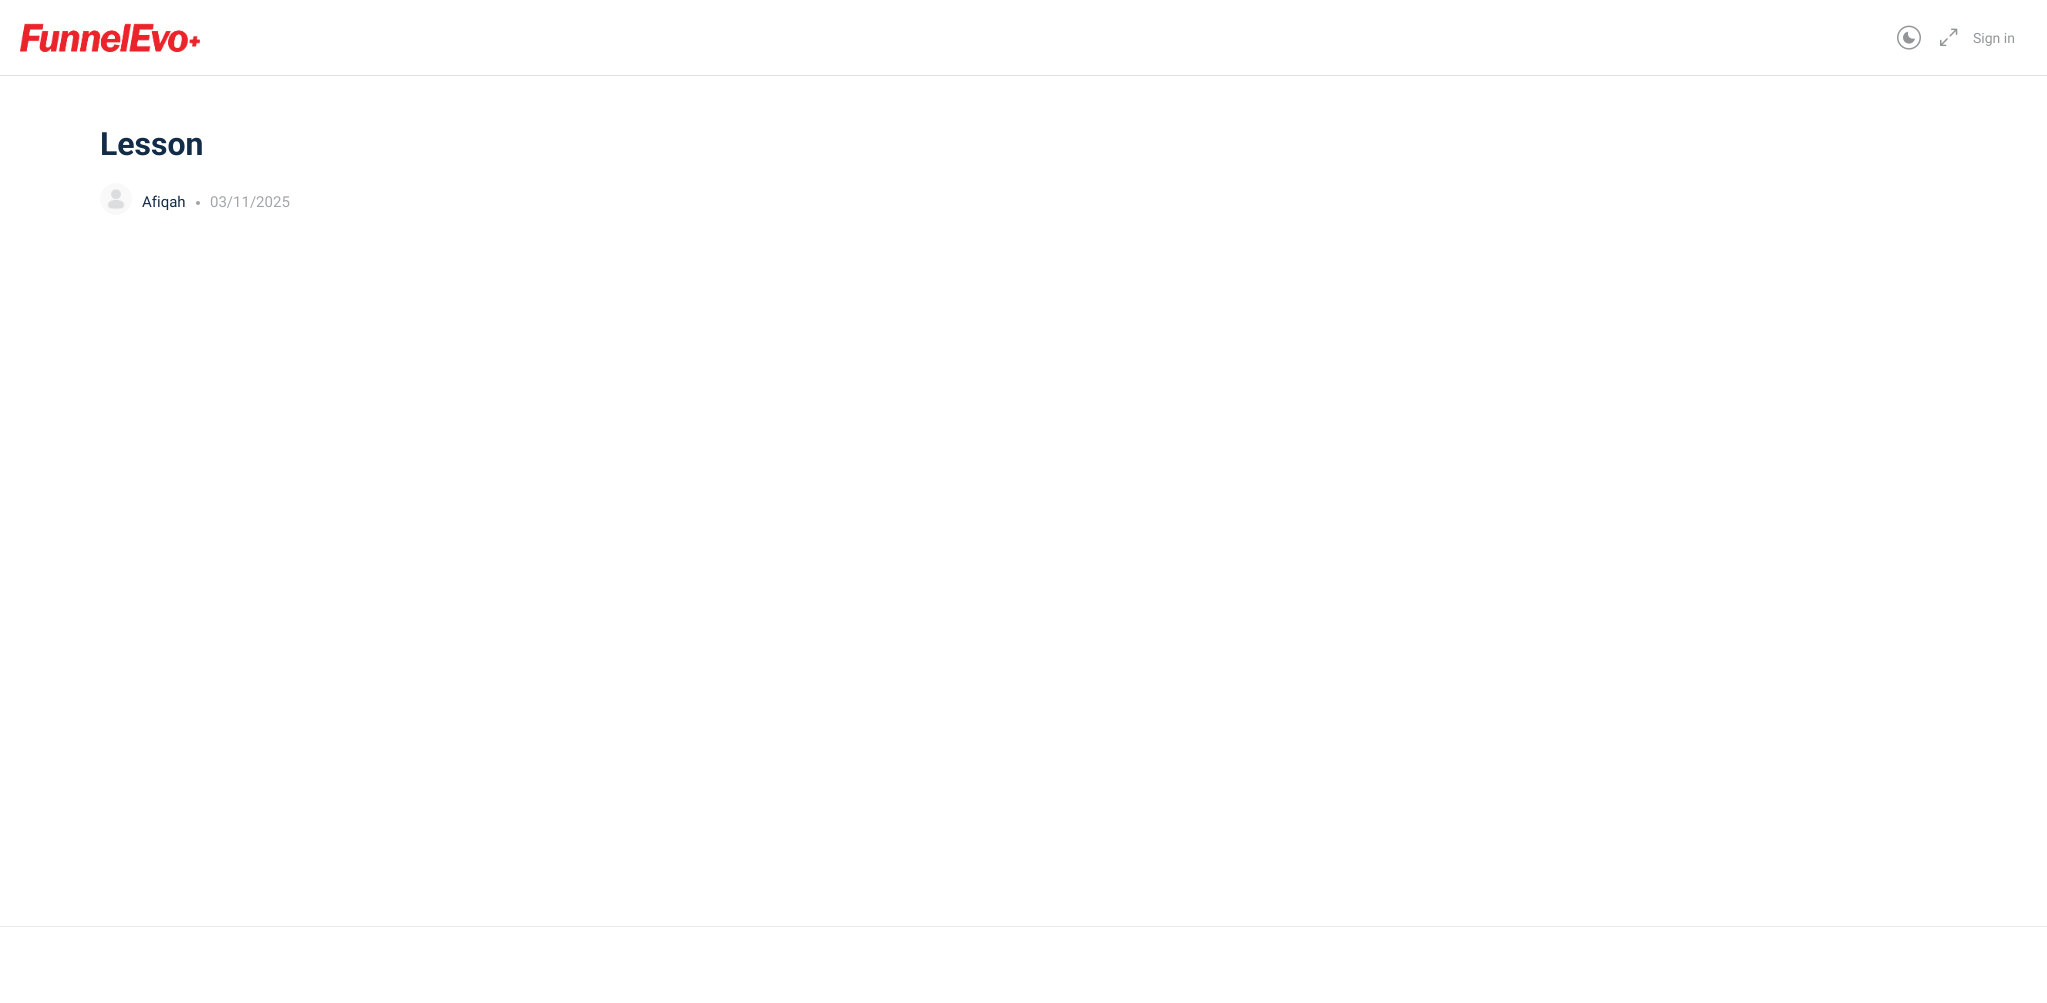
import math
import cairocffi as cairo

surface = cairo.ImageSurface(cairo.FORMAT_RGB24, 2047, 1003)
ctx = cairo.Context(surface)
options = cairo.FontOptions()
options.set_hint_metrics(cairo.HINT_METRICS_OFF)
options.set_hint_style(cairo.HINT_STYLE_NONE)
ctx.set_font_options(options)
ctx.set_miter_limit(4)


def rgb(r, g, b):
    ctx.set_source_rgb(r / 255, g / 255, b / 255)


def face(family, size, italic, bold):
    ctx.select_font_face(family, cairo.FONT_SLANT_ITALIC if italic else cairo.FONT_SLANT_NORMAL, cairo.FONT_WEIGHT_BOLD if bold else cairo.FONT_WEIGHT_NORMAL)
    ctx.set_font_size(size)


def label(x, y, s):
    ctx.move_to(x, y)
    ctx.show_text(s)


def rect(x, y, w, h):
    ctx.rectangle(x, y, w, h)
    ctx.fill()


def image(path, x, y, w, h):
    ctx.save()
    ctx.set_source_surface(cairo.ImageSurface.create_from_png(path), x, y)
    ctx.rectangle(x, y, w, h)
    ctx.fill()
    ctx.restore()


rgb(255, 255, 255)
ctx.paint()
rgb(220, 223, 227)
rect(0, 75, 2047, 1)
image('image0.png', 20, 23, 180, 30)
image('image1.png', 1897, 25, 24, 25)
image('image2.png', 1940, 28, 18, 19)
face('Roboto', 14, 0, 0)
rgb(147, 149, 151)
label(1973, 43, 'Sign in')
rgb(231, 233, 236)
rect(0, 926, 2047, 1)
face('Roboto', 32, 0, 1)
rgb(18, 43, 70)
label(100, 155, 'Lesson')
image('image3.png', 100, 183, 32, 32)
face('Roboto', 15, 0, 0)
label(142, 207, 'Afiqah')
rgb(163, 165, 169)
ctx.new_path()
ctx.arc(198, 203, 2, 0, 2 * math.pi)
ctx.fill()
label(210, 207, '03/11/2025')
surface.write_to_png('render.png')
